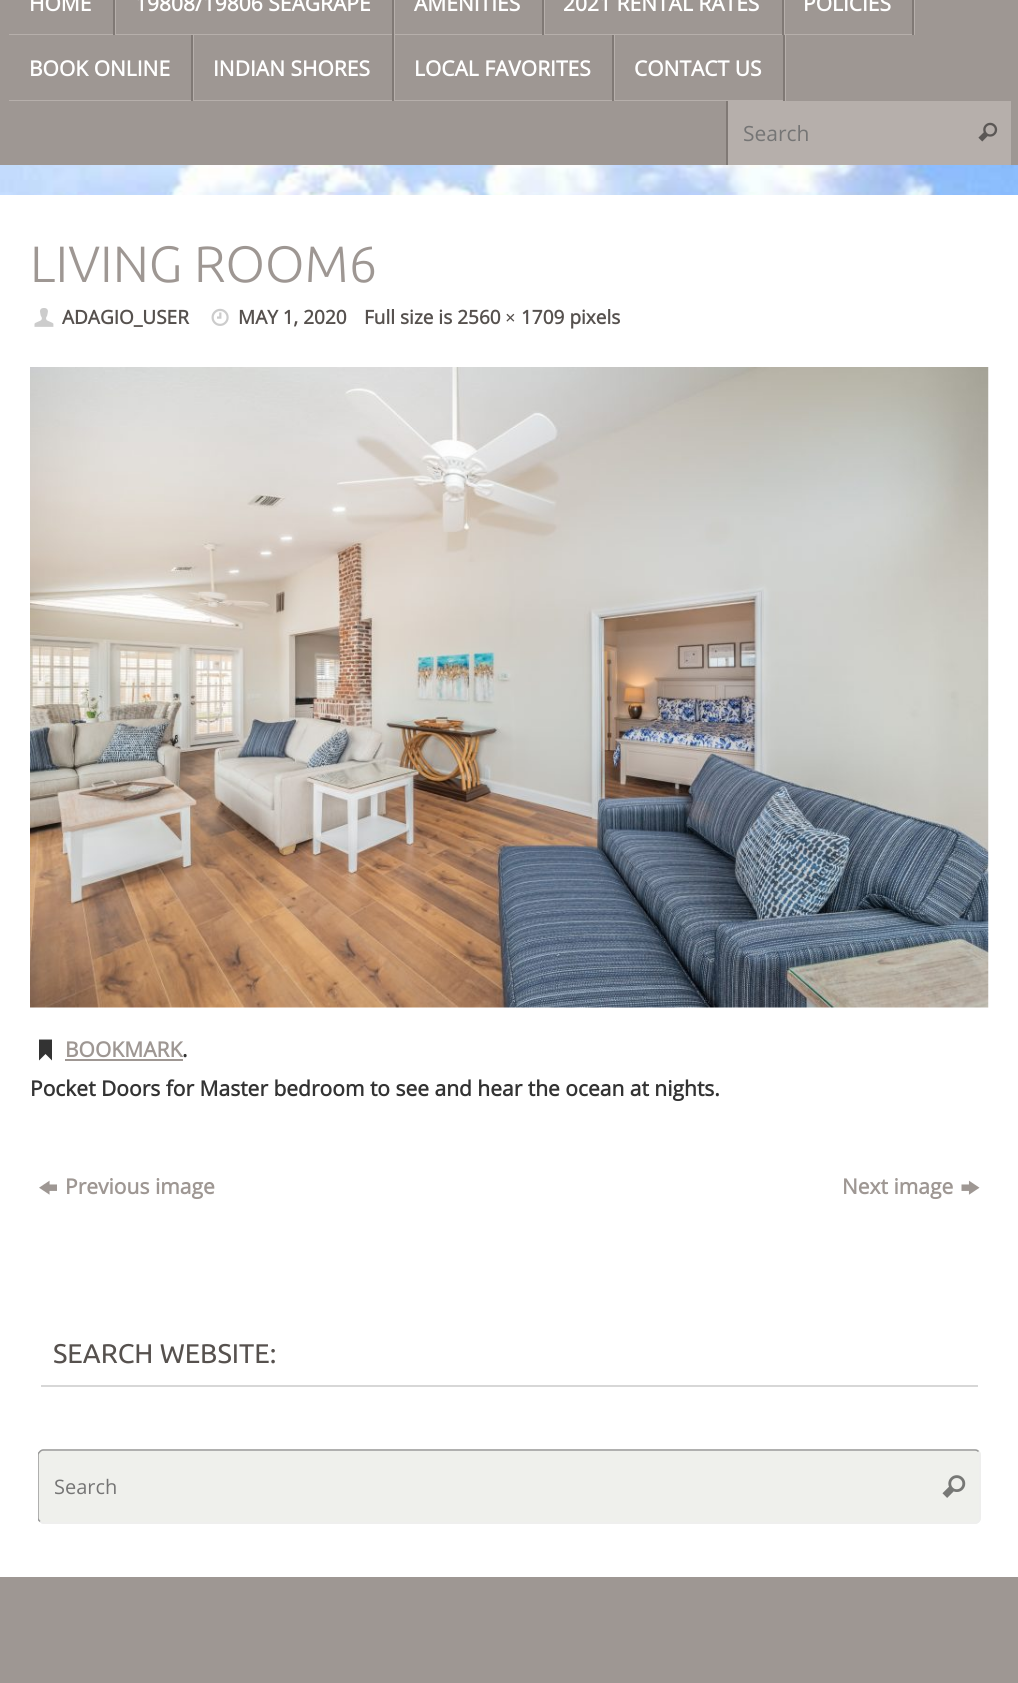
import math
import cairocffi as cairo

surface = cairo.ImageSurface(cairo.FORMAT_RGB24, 1018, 1683)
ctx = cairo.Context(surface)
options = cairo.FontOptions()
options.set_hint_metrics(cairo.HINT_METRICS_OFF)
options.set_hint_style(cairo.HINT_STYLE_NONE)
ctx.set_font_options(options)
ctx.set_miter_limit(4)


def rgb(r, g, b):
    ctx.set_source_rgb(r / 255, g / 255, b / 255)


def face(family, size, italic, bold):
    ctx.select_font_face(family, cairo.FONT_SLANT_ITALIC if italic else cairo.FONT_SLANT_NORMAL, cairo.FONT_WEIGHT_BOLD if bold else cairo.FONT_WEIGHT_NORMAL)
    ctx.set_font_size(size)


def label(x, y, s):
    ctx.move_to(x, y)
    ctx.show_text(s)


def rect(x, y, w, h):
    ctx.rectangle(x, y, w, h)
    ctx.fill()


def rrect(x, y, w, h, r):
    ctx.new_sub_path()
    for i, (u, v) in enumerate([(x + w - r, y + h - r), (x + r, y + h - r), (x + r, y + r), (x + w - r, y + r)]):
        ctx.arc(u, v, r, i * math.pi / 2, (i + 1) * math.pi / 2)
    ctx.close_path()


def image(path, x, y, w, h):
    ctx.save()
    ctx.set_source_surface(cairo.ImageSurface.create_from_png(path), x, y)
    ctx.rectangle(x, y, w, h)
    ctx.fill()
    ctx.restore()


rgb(255, 255, 255)
ctx.paint()
image('image0.png', 0, 165, 1018, 30)
rgb(158, 151, 147)
rect(0, 0, 1018, 165)
rgb(182, 175, 171)
ctx.new_path()
ctx.move_to(9, 34)
ctx.line_to(9, 35)
ctx.line_to(116, 35)
ctx.line_to(116, -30)
ctx.line_to(114, -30)
ctx.line_to(114, 34)
ctx.close_path()
ctx.fill()
rgb(128, 121, 117)
rect(113, 0, 2, 35)
face('Open Sans', 21, 0, 1)
rgb(255, 255, 255)
label(29, 11, 'HOME')
rgb(182, 175, 171)
ctx.new_path()
ctx.move_to(116, 34)
ctx.line_to(116, 35)
ctx.line_to(395, 35)
ctx.line_to(395, -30)
ctx.line_to(393, -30)
ctx.line_to(393, 34)
ctx.close_path()
ctx.fill()
rgb(128, 121, 117)
rect(392, 0, 2, 35)
rgb(255, 255, 255)
label(135, 11, '19808/19806 SEAGRAPE')
rgb(182, 175, 171)
ctx.new_path()
ctx.move_to(395, 34)
ctx.line_to(395, 35)
ctx.line_to(545, 35)
ctx.line_to(545, -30)
ctx.line_to(543, -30)
ctx.line_to(543, 34)
ctx.close_path()
ctx.fill()
rgb(128, 121, 117)
rect(542, 0, 2, 35)
rgb(255, 255, 255)
label(414, 11, 'AMENITIES')
rgb(182, 175, 171)
ctx.new_path()
ctx.move_to(545, 34)
ctx.line_to(545, 35)
ctx.line_to(785, 35)
ctx.line_to(785, -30)
ctx.line_to(783, -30)
ctx.line_to(783, 34)
ctx.close_path()
ctx.fill()
rgb(128, 121, 117)
rect(782, 0, 2, 35)
rgb(255, 255, 255)
label(563, 11, '2021 RENTAL RATES')
rgb(182, 175, 171)
ctx.new_path()
ctx.move_to(785, 34)
ctx.line_to(785, 35)
ctx.line_to(915, 35)
ctx.line_to(915, -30)
ctx.line_to(914, -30)
ctx.line_to(914, 34)
ctx.close_path()
ctx.fill()
rgb(128, 121, 117)
rect(912, 0, 2, 35)
rgb(255, 255, 255)
label(803, 11, 'POLICIES')
rgb(182, 175, 171)
ctx.new_path()
ctx.move_to(9, 100)
ctx.line_to(9, 101)
ctx.line_to(194, 101)
ctx.line_to(194, 35)
ctx.line_to(192, 35)
ctx.line_to(192, 100)
ctx.close_path()
ctx.fill()
rgb(128, 121, 117)
rect(191, 35, 2, 66)
rgb(255, 255, 255)
label(29, 76, 'BOOK ONLINE')
rgb(182, 175, 171)
ctx.new_path()
ctx.move_to(194, 100)
ctx.line_to(194, 101)
ctx.line_to(395, 101)
ctx.line_to(395, 35)
ctx.line_to(393, 35)
ctx.line_to(393, 100)
ctx.close_path()
ctx.fill()
rgb(128, 121, 117)
rect(392, 35, 2, 66)
rgb(255, 255, 255)
label(213, 76, 'INDIAN SHORES')
rgb(182, 175, 171)
ctx.new_path()
ctx.move_to(395, 100)
ctx.line_to(395, 101)
ctx.line_to(615, 101)
ctx.line_to(615, 35)
ctx.line_to(614, 35)
ctx.line_to(614, 100)
ctx.close_path()
ctx.fill()
rgb(128, 121, 117)
rect(612, 35, 2, 66)
rgb(255, 255, 255)
label(414, 76, 'LOCAL FAVORITES')
rgb(182, 175, 171)
ctx.new_path()
ctx.move_to(615, 100)
ctx.line_to(615, 101)
ctx.line_to(786, 101)
ctx.line_to(786, 35)
ctx.line_to(784, 35)
ctx.line_to(784, 100)
ctx.close_path()
ctx.fill()
rgb(128, 121, 117)
rect(783, 35, 2, 66)
rgb(255, 255, 255)
label(634, 76, 'CONTACT US')
rgb(182, 175, 171)
rect(728, 101, 283, 64)
rgb(128, 121, 117)
rect(726, 101, 2, 64)
face('Open Sans', 21, 0, 0)
rgb(117, 117, 117)
label(743, 141, 'Search')
image('image1.png', 978, 122, 20, 20)
face('Ubuntu Light', 51, 0, 0)
rgb(158, 151, 147)
label(30, 282, 'LIVING ROOM6')
image('image2.png', 34, 308, 20, 19)
face('Open Sans', 19, 0, 1)
rgb(86, 81, 78)
label(62, 324, 'ADAGIO_USER')
image('image3.png', 211, 308, 18, 18)
label(238, 324, 'MAY 1, 2020')
label(364, 324, 'Full size is 2560')
face('Liberation Serif', 19, 0, 1)
label(505, 324, '×')
face('Open Sans', 19, 0, 1)
label(521, 324, '1709 pixels')
image('image4.png', 30, 367, 959, 641)
rgb(51, 51, 51)
ctx.new_path()
ctx.move_to(39, 1058.5)
ctx.line_to(39, 1039.5)
ctx.line_to(52, 1039.5)
ctx.line_to(52, 1060.5)
ctx.line_to(45.5, 1054)
ctx.line_to(39, 1060.5)
ctx.close_path()
ctx.fill()
face('Open Sans', 21, 0, 1)
rgb(158, 151, 147)
label(65, 1057, 'BOOKMARK')
rect(65, 1059, 118, 2)
rgb(51, 51, 51)
label(182, 1057, '.')
label(30, 1096, 'Pocket Doors for Master bedroom to see and hear the ocean at nights.')
image('image5.png', 39, 1180, 18, 15)
rgb(158, 151, 147)
label(65, 1194, 'Previous image')
label(842, 1194, 'Next image')
image('image6.png', 961, 1180, 19, 15)
rgb(215, 215, 215)
rect(41, 1385, 937, 2)
face('Ubuntu', 27, 0, 0)
rgb(86, 81, 78)
label(53, 1363, 'SEARCH WEBSITE:')
rgb(239, 240, 236)
rrect(38, 1449, 943, 75, 6)
ctx.fill()
ctx.new_path()
ctx.move_to(978.5, 1451.5)
ctx.curve_to(979.5, 1452.5, 980, 1453.5, 980, 1455)
ctx.line_to(980, 1518)
ctx.curve_to(980, 1519.5, 979.5, 1520.5, 978.5, 1521.5)
ctx.curve_to(977.5, 1522.5, 976.5, 1523, 975, 1523)
ctx.line_to(43.5, 1523)
ctx.curve_to(42, 1523, 41, 1522.5, 40, 1521.5)
rgb(238, 238, 238)
ctx.set_line_width(1.5)
ctx.stroke()
ctx.save()
ctx.rectangle(38, 1449, 943, 75)
ctx.clip()
ctx.new_path()
ctx.move_to(40, 1521.5)
ctx.curve_to(39, 1520.5, 38, 1519.5, 38, 1518)
ctx.line_to(38, 1455)
ctx.curve_to(38, 1453.5, 39, 1452.5, 40, 1451.5)
ctx.curve_to(41, 1450.5, 42, 1450, 43.5, 1450)
ctx.line_to(975, 1450)
ctx.curve_to(976.5, 1450, 977.5, 1450.5, 978.5, 1451.5)
rgb(153, 153, 153)
ctx.stroke()
ctx.restore()
face('Open Sans', 20, 0, 0)
rgb(117, 117, 117)
label(54, 1494, 'Search')
image('image7.png', 942, 1475, 24, 23)
rgb(158, 151, 147)
rect(0, 1577, 1018, 106)
surface.write_to_png('render.png')
